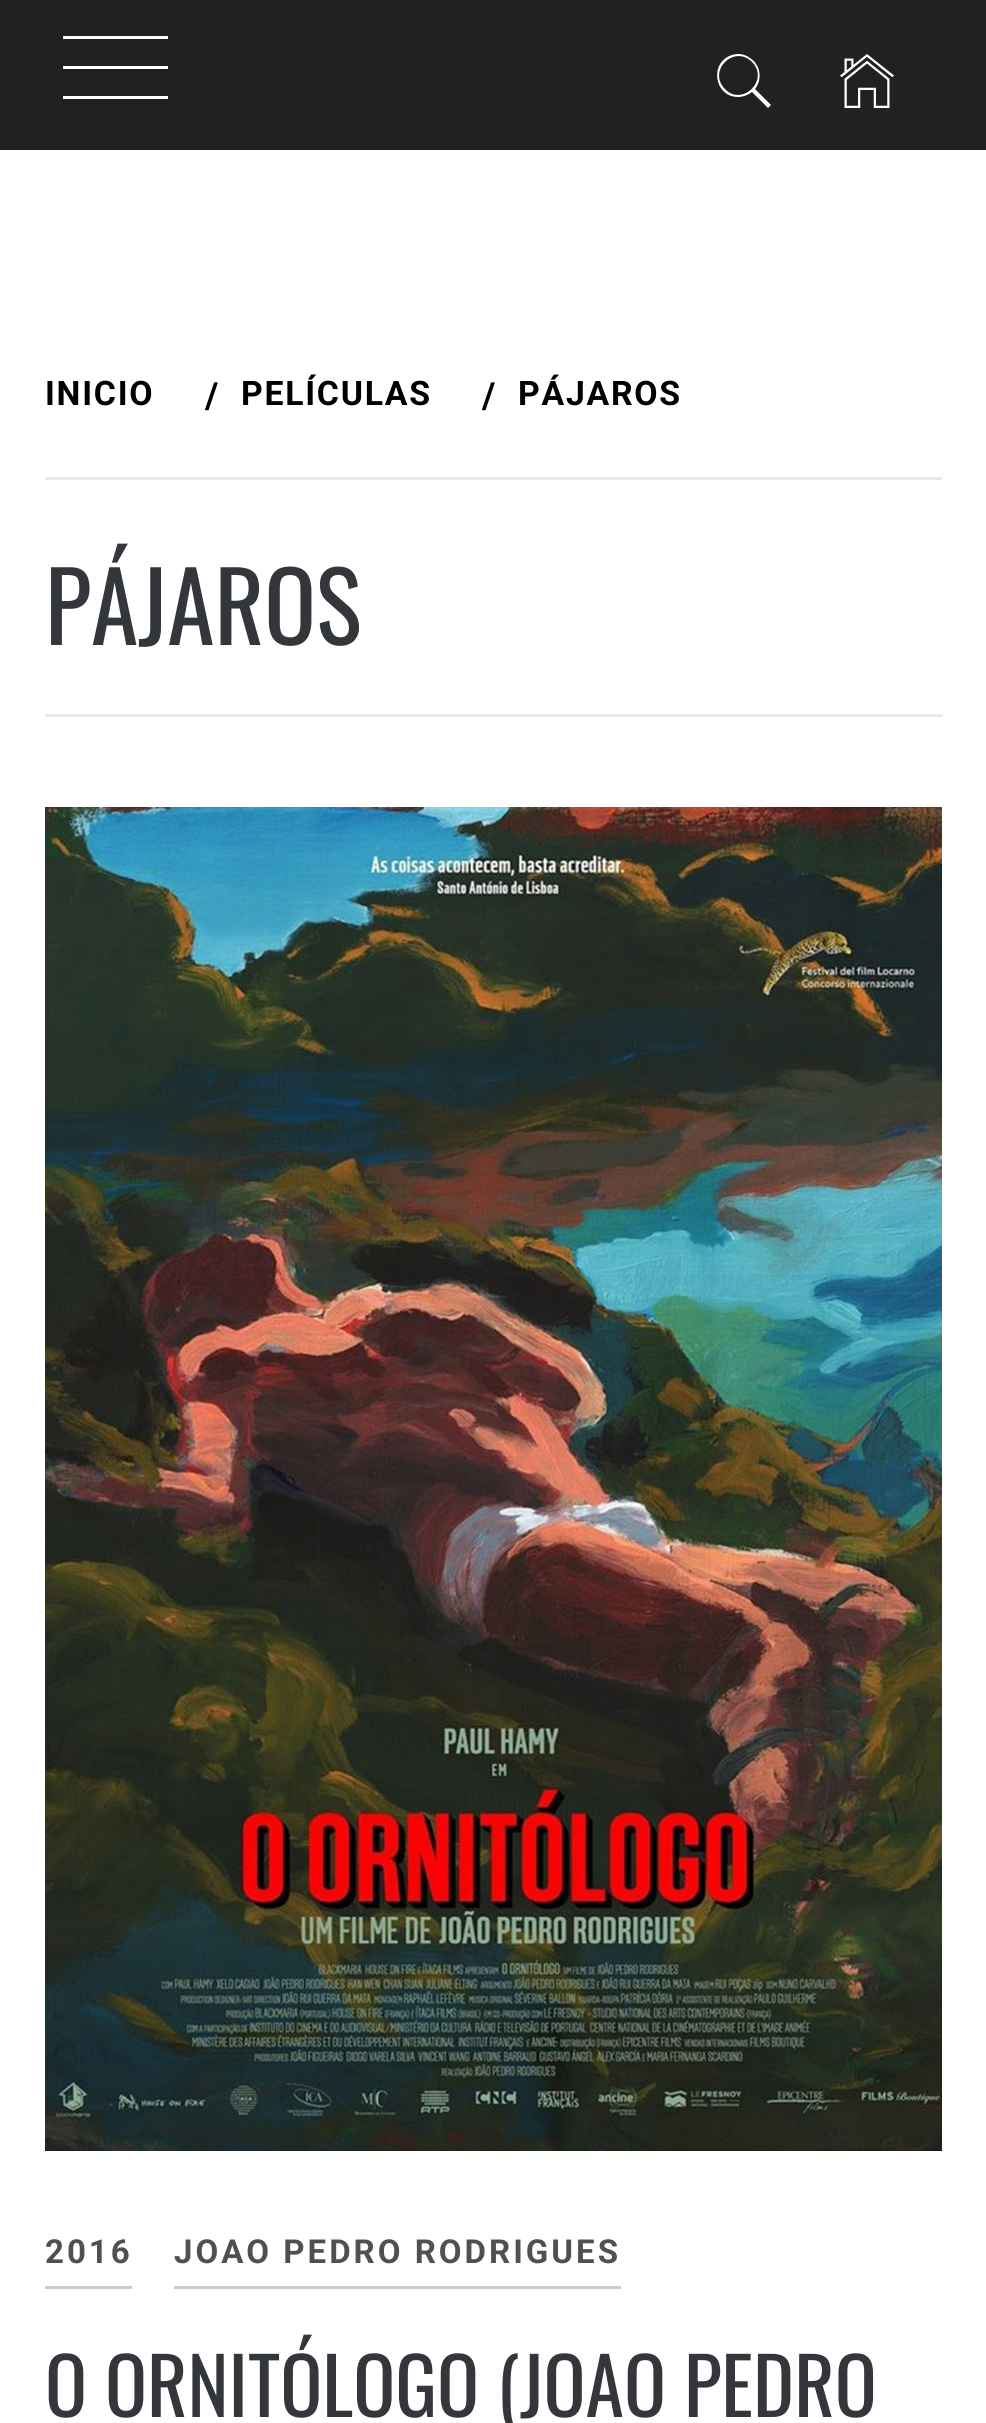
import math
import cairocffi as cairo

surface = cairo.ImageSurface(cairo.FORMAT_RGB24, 986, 2423)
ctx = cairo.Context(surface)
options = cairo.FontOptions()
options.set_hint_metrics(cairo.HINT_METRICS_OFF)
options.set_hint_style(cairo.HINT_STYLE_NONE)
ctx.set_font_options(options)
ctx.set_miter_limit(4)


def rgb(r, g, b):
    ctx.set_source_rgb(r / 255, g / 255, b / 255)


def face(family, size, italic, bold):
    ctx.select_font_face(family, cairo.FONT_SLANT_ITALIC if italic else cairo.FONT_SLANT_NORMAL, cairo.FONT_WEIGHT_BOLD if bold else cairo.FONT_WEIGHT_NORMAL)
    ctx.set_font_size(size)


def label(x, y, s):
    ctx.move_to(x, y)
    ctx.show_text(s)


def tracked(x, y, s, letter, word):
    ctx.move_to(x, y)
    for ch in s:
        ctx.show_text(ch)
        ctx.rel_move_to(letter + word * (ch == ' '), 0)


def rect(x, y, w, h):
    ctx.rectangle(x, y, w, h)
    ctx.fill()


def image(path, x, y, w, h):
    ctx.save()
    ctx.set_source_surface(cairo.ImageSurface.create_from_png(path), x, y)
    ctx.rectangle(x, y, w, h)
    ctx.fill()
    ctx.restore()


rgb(255, 255, 255)
ctx.paint()
rgb(33, 33, 33)
rect(0, 0, 986, 150)
rgb(255, 255, 255)
rect(63, 36, 105, 3)
rect(63, 66, 105, 3)
rect(63, 96, 105, 3)
ctx.new_path()
ctx.move_to(771, 105)
ctx.line_to(768, 108)
ctx.line_to(752, 92)
ctx.curve_to(748, 95, 743, 97, 738, 97)
ctx.curve_to(714, 97, 709, 62, 732, 55)
ctx.curve_to(738, 53, 745, 54, 750, 58)
ctx.curve_to(760, 64, 763, 79, 755, 89)
ctx.close_path()
ctx.move_to(725, 89)
ctx.curve_to(742, 107, 770, 80, 752, 62)
ctx.curve_to(734, 44, 707, 71, 725, 89)
ctx.close_path()
ctx.fill()
image('image0.png', 840, 54, 54, 54)
rgb(234, 234, 234)
rect(45, 714, 897, 3)
rect(45, 477, 897, 3)
face('Roboto', 33.75, 0, 1)
rgb(0, 0, 0)
tracked(45, 405, 'INICIO', 1.75, 0)
face('Roboto', 36, 0, 1)
tracked(205, 408, '/', 1.75, 0)
face('Roboto', 33.75, 0, 1)
tracked(241, 405, 'PELÍCULAS', 1.75, 0)
face('Roboto', 36, 0, 1)
tracked(482, 408, '/', 1.75, 0)
face('Roboto', 33.75, 0, 1)
tracked(518, 405, 'PÁJAROS', 1.75, 0)
face('Oswald', 96, 0, 0)
rgb(51, 54, 59)
label(45, 645, 'PÁJAROS')
image('image1.png', 45, 807, 897, 1344)
rgb(202, 202, 202)
rect(45, 2286, 87, 3)
face('Roboto', 33, 0, 1)
rgb(80, 80, 80)
tracked(45, 2263, '2016', 3, 0)
rgb(202, 202, 202)
rect(174, 2286, 447, 3)
rgb(80, 80, 80)
tracked(174, 2263, 'JOAO PEDRO RODRIGUES', 3, 0)
face('Oswald', 78, 0, 0)
rgb(51, 54, 59)
label(45, 2417, 'O ORNITÓLOGO (JOAO PEDRO')
surface.write_to_png('render.png')
